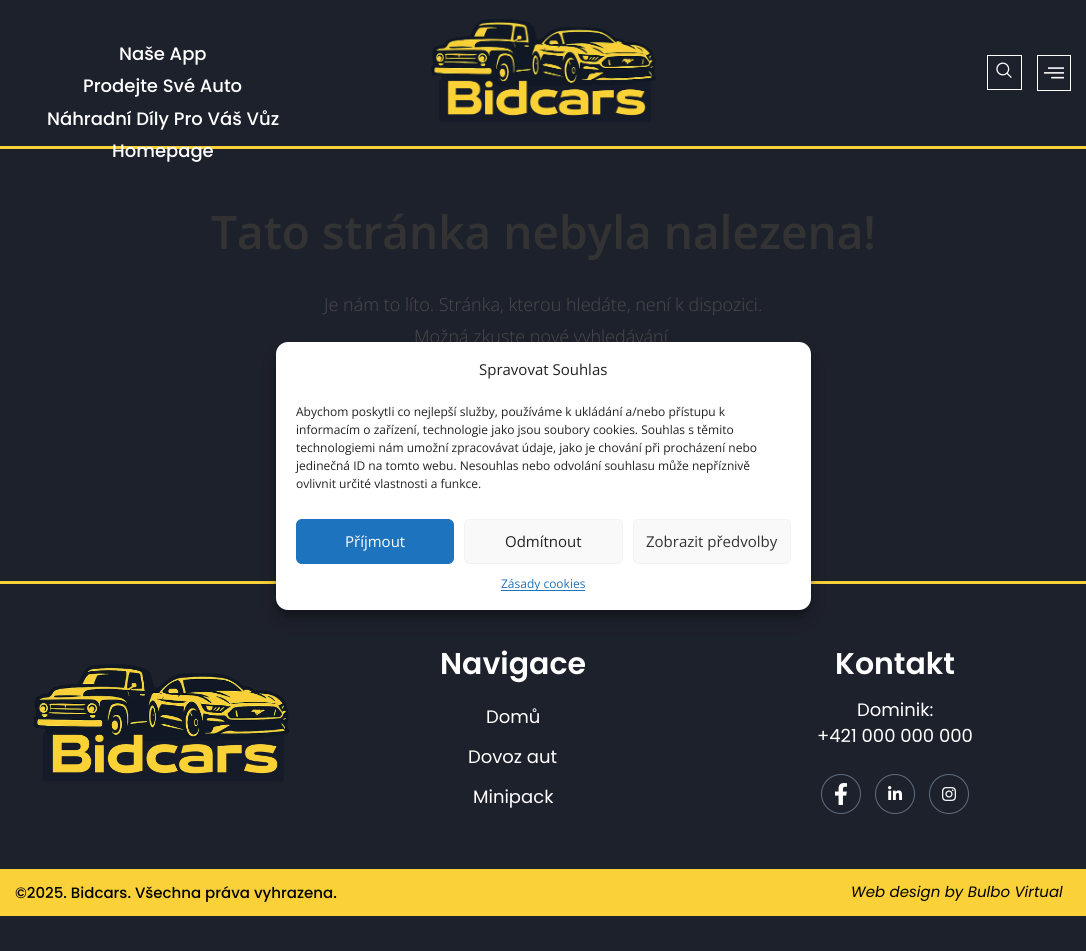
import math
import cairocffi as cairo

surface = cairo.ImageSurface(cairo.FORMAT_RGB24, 1086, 951)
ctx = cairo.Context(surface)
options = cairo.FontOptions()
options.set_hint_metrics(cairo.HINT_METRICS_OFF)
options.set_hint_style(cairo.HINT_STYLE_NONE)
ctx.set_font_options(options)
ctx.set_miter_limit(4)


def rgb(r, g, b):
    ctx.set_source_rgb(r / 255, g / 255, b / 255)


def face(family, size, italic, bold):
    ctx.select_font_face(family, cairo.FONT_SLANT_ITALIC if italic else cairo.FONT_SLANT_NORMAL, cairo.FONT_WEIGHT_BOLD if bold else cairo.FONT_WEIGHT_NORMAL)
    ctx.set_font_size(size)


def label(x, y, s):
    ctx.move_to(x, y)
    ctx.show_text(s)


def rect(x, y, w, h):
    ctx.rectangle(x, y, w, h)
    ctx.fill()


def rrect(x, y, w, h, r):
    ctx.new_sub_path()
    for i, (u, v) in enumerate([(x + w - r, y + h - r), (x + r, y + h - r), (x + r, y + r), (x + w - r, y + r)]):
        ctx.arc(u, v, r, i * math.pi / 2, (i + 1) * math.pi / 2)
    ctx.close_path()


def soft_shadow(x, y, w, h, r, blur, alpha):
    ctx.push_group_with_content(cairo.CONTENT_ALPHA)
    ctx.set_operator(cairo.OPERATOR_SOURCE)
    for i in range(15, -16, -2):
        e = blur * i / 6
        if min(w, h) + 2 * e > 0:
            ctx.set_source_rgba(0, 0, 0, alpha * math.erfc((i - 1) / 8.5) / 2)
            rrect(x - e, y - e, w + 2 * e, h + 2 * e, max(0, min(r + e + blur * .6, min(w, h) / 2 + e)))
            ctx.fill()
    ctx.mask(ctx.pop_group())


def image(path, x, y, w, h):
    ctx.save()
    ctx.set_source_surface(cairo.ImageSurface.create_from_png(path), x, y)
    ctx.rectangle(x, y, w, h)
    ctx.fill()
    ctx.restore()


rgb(29, 33, 44)
ctx.paint()
rgb(250, 209, 56)
rect(0, 146, 1086, 3)
face('Poppins Medium', 18, 0, 0)
rgb(255, 255, 255)
label(119, 60, 'Naše App')
label(83, 92, 'Prodejte Své Auto')
label(47, 125, 'Náhradní Díly Pro Váš Vůz')
label(112, 157, 'Homepage')
image('image0.png', 431, 19, 225, 103)
ctx.rectangle(987.5, 55.5, 34, 34)
ctx.set_line_width(1)
ctx.stroke()
image('image1.png', 996, 62, 16, 16)
ctx.rectangle(1037.5, 55.5, 33, 35)
ctx.stroke()
image('image2.png', 1044, 67, 20, 12)
face('Open Sans SemiBold', 46, 0, 0)
rgb(51, 51, 51)
label(211, 249, 'Tato stránka nebyla nalezena!')
face('Open Sans Light', 18, 0, 0)
rgb(74, 74, 74)
label(324, 311, 'Je nám to líto. Stránka, kterou hledáte, není k dispozici.')
label(414, 343, 'Možná zkuste nové vyhledávání.')
rgb(250, 209, 56)
rect(0, 581, 1086, 3)
image('image3.png', 34, 664, 255, 118)
face('Poppins SemiBold', 30, 0, 0)
rgb(255, 255, 255)
label(440, 674, 'Navigace')
face('Poppins', 18, 0, 0)
label(486, 723, 'Domů')
label(468, 763, 'Dovoz aut')
label(473, 803, 'Minipack')
face('Poppins SemiBold', 30, 0, 0)
label(835, 674, 'Kontakt')
face('Poppins', 18, 0, 0)
label(857, 716, 'Dominik:')
label(817, 742, '+421 000 000 000')
ctx.new_path()
ctx.arc(841, 794, 19.5, 0, 2 * math.pi)
rgb(94, 109, 126)
ctx.stroke()
image('image4.png', 835, 783, 12, 22)
ctx.arc(895, 794, 19.5, 0, 2 * math.pi)
ctx.stroke()
image('image5.png', 888, 786, 14, 14)
ctx.arc(949, 794, 19.5, 0, 2 * math.pi)
ctx.stroke()
image('image6.png', 942, 787, 14, 14)
rgb(250, 209, 56)
rect(0, 869, 1086, 47)
face('Poppins Medium', 15, 0, 0)
rgb(0, 0, 0)
label(15, 898, '©2025. Bidcars. Všechna práva vyhrazena.')
face('Poppins', 15, 1, 0)
label(851, 897, 'Web design by Bulbo Virtual')
rgb(0, 0, 0)
soft_shadow(276, 348, 535, 268, 12, 3, 0.23)
soft_shadow(276, 352, 535, 268, 12, 10, 0.19)
rgb(255, 255, 255)
rrect(276, 342, 535, 268, 12)
ctx.fill()
face('Open Sans', 15, 0, 0)
rgb(34, 34, 34)
label(479, 375, 'Spravovat Souhlas')
face('Open Sans', 12, 0, 0)
label(296, 416, 'Abychom poskytli co nejlepší služby, používáme k ukládání a/nebo přístupu k')
label(296, 434, 'informacím o zařízení, technologie jako jsou soubory cookies. Souhlas s těmito')
label(296, 452, 'technologiemi nám umožní zpracovávat údaje, jako je chování při procházení nebo')
label(296, 470, 'jedinečná ID na tomto webu. Nesouhlas nebo odvolání souhlasu může nepříznivě')
label(296, 488, 'ovlivnit určité vlastnosti a funkce.')
rgb(30, 115, 190)
rrect(296.5, 519.5, 157, 44, 5.5)
ctx.fill_preserve()
ctx.stroke()
face('Open Sans', 15, 0, 0)
rgb(255, 255, 255)
label(345, 547, 'Příjmout')
rgb(249, 249, 249)
rrect(464.5, 519.5, 158, 44, 5.5)
ctx.fill_preserve()
rgb(242, 242, 242)
ctx.stroke()
rgb(34, 34, 34)
label(505, 547, 'Odmítnout')
rgb(249, 249, 249)
rrect(633.5, 519.5, 157, 44, 5.5)
ctx.fill_preserve()
rgb(242, 242, 242)
ctx.stroke()
rgb(51, 51, 51)
label(646, 547, 'Zobrazit předvolby')
rgb(30, 115, 190)
rect(501, 590, 84, 1)
face('Open Sans', 12, 0, 0)
label(501, 588, 'Zásady cookies')
surface.write_to_png('render.png')
